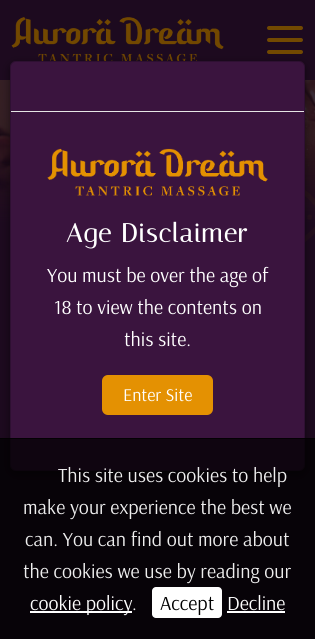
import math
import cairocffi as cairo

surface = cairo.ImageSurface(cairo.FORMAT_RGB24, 315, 639)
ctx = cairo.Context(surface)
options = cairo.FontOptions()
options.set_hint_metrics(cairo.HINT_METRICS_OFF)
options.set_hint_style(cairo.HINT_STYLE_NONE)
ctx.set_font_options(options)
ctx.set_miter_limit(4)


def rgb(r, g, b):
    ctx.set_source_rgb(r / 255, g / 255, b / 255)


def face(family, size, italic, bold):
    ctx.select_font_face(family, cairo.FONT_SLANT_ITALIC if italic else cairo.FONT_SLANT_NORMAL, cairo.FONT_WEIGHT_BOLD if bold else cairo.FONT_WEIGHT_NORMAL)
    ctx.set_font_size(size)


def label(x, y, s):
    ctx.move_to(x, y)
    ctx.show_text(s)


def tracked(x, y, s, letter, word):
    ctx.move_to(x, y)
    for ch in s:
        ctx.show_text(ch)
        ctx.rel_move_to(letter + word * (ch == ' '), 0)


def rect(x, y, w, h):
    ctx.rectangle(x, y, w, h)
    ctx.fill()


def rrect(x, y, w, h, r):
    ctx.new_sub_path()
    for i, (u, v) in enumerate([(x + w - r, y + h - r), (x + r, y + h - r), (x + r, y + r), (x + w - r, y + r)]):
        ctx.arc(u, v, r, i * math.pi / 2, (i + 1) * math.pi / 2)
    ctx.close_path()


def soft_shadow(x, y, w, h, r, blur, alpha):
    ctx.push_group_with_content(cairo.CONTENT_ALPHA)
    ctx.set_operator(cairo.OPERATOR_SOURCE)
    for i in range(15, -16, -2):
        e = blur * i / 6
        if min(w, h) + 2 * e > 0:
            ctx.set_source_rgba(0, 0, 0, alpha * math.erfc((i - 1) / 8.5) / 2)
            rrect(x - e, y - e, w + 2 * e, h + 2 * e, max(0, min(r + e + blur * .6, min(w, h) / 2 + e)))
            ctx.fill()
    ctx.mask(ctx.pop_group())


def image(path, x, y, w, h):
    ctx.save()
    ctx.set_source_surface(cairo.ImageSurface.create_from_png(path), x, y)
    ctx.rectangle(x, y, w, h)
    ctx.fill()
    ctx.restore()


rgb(29, 10, 31)
ctx.paint()
image('image0.png', 11, 17, 213, 44)
rgb(114, 73, 1)
rrect(267, 26, 36, 4, 2)
ctx.fill()
rrect(267, 38, 36, 4, 2)
ctx.fill()
rrect(267, 50, 36, 4, 2)
ctx.fill()
image('image1.png', 0, 80, 315, 144)
gradient = cairo.LinearGradient(158, 152, 158, 224)
gradient.add_color_stop_rgba(0, 0.114, 0.039, 0.122, 0)
gradient.add_color_stop_rgba(1, 0.114, 0.039, 0.122, 1)
ctx.set_source(gradient)
rect(0, 158, 315, 66)
image('image2.png', 305, 190, 10, 52)
rgb(0, 0, 0)
soft_shadow(10, 64, 295, 410, 6, 4.5, 0.5)
rgb(58, 20, 62)
rrect(10, 61, 295, 410, 6)
ctx.fill()
rrect(10.5, 61.5, 294, 409, 5.5)
ctx.set_source_rgba(0, 0, 0, 0.2)
ctx.set_line_width(1)
ctx.stroke()
rgb(229, 229, 229)
rect(11, 111, 293, 1)
image('image3.png', 47, 148, 221, 48)
face('Italiana', 26, 0, 1)
rgb(255, 255, 255)
tracked(66, 242, 'Age Disclaimer', 1.25, 0)
face('Arsenal', 20, 0, 0)
label(47, 282, 'You must be over the age of')
label(54, 314, '18 to view the contents on')
label(124, 346, 'this site.')
rgb(228, 145, 2)
rrect(102, 375, 111, 40, 6)
ctx.fill()
face('Arsenal', 18, 0, 0)
rgb(255, 255, 255)
label(123, 401, 'Enter Site')
ctx.set_source_rgba(0, 0, 0, 0.75)
rect(0, 438, 315, 201)
rect(0, 438, 315, 1)
face('Arsenal', 20, 0, 0)
rgb(238, 238, 238)
label(58, 482, 'This site uses cookies to help')
label(23, 514, 'make your experience the best we')
label(25, 546, 'can. You can find out more about')
label(23, 578, 'the cookies we use by reading our')
rgb(255, 255, 255)
rect(30, 611, 102, 2)
label(30, 610, 'cookie policy')
rgb(238, 238, 238)
label(132, 610, '.')
rgb(255, 255, 255)
rrect(152, 587, 70, 31, 4)
ctx.fill()
rgb(0, 0, 0)
label(160, 610, 'Accept')
rgb(255, 255, 255)
label(227, 610, 'Decline')
rect(227, 611, 58, 2)
surface.write_to_png('render.png')
